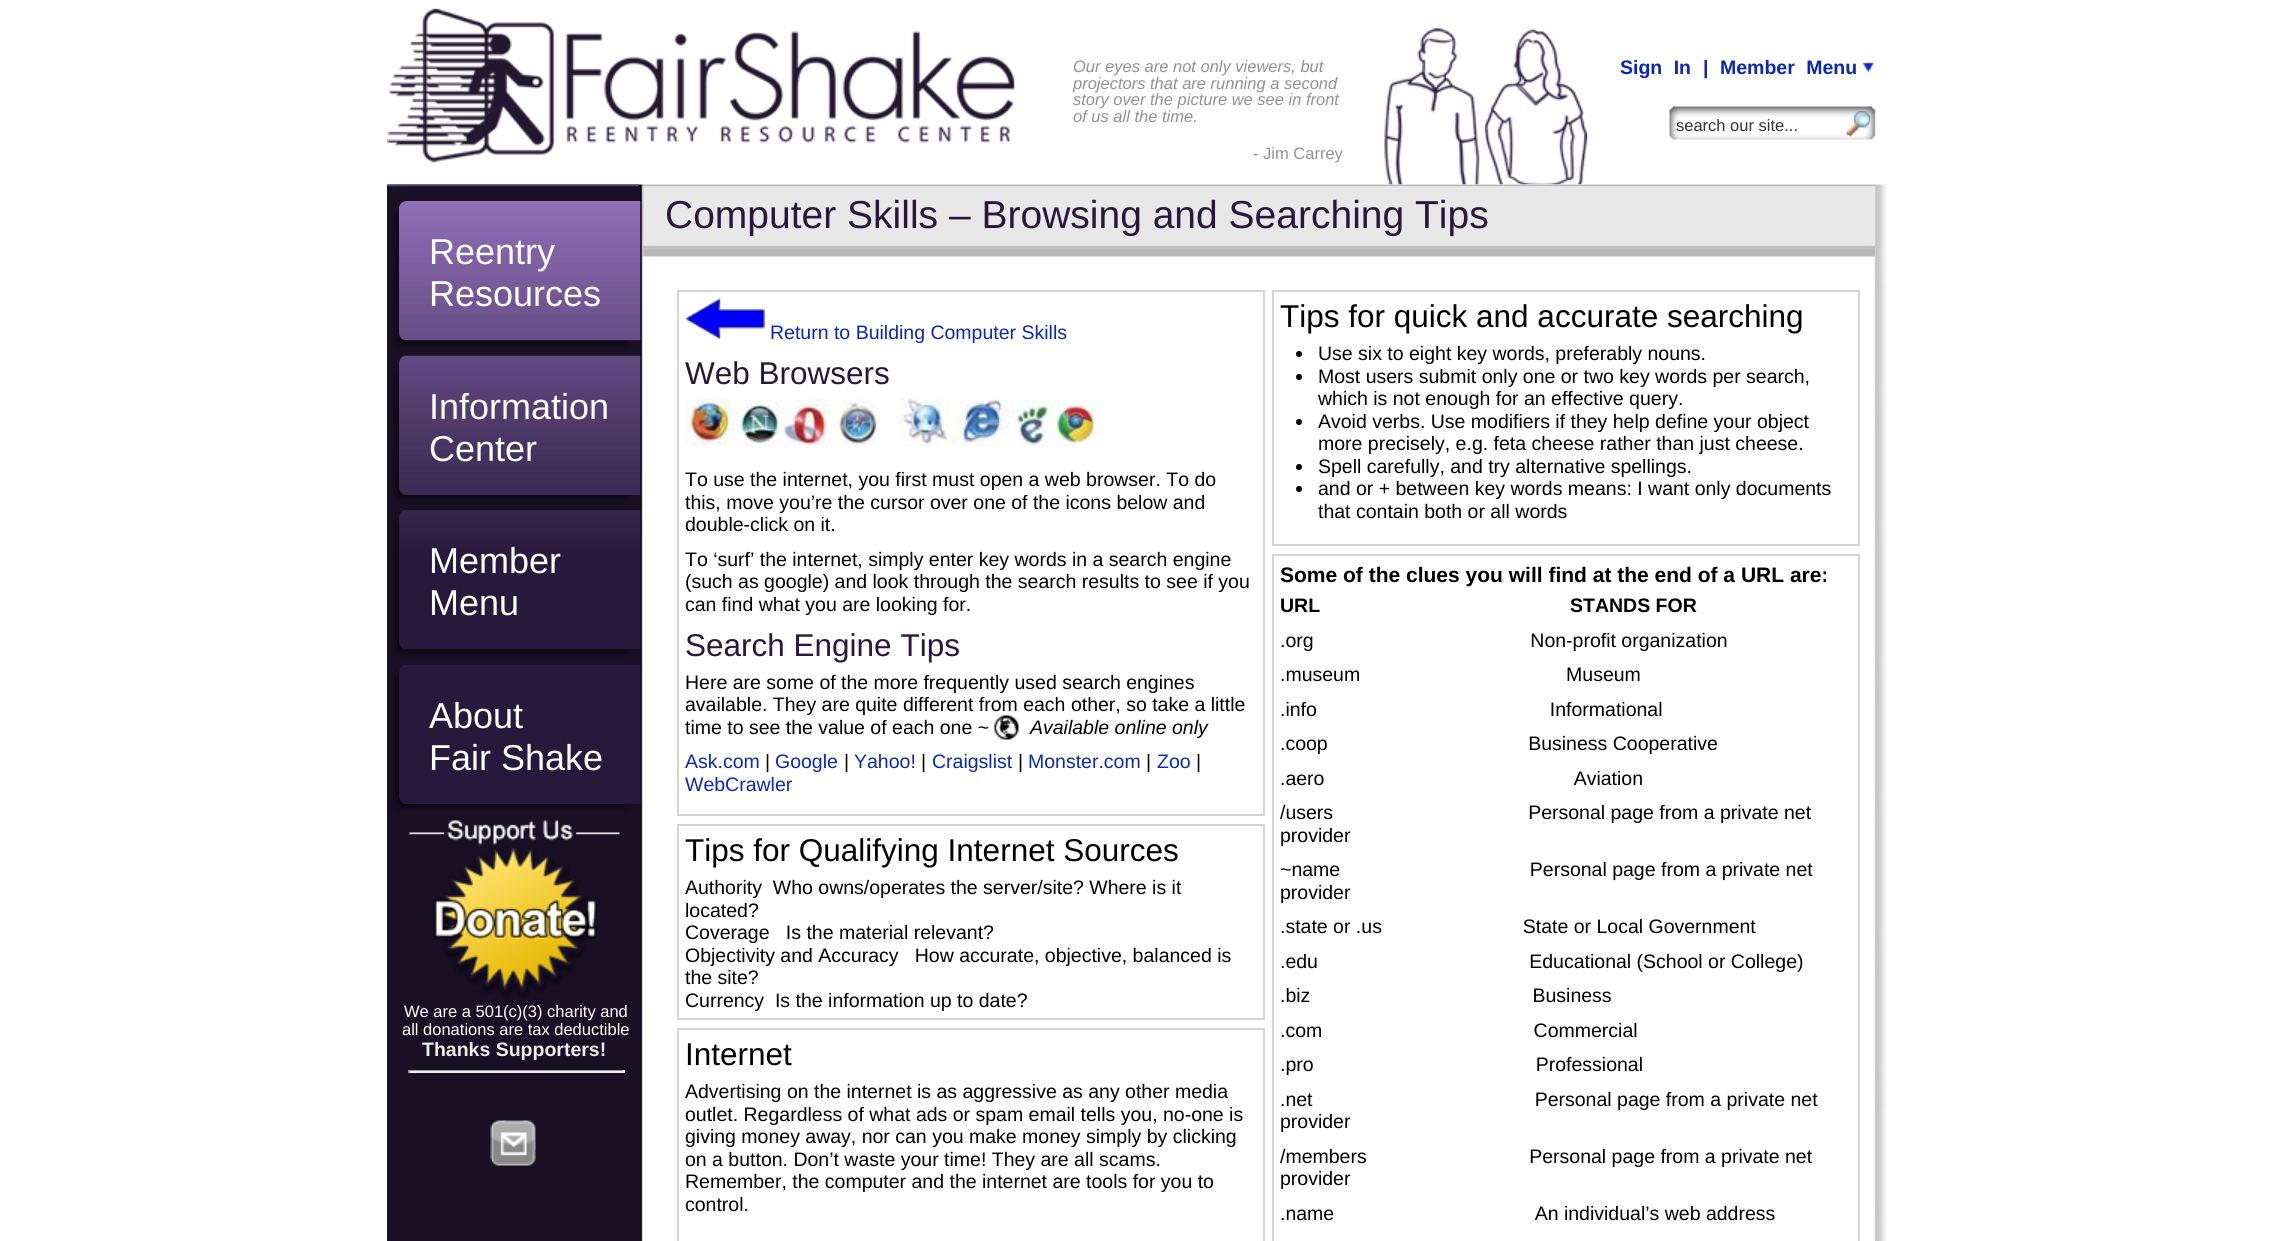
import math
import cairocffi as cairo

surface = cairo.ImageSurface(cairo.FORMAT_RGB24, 2294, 1241)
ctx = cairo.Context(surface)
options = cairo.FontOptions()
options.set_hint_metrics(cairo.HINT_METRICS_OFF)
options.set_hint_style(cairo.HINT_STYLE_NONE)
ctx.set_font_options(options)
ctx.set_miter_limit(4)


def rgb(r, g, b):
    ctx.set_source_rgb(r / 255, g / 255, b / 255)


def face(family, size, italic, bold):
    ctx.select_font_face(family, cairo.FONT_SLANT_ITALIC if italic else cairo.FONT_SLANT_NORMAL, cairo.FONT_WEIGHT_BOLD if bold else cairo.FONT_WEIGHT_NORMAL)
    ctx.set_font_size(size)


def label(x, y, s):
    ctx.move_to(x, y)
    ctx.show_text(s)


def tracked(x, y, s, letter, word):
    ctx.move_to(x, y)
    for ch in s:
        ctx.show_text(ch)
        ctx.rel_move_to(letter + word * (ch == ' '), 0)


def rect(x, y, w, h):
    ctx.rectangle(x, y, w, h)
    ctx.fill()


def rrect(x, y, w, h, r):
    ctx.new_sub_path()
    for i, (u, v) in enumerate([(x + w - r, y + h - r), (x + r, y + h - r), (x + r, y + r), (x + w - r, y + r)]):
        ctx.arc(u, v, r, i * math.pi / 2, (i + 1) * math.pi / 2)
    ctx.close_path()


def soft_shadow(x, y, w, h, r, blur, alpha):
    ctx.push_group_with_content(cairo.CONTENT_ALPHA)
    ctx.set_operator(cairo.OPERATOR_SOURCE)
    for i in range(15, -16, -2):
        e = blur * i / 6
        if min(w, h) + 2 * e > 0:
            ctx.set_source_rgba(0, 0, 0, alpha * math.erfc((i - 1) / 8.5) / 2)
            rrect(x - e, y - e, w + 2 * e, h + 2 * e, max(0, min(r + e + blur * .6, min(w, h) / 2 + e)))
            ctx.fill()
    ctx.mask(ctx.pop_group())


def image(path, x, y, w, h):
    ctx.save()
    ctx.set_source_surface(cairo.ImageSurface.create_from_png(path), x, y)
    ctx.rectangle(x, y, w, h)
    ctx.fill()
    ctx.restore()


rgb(255, 255, 255)
ctx.paint()
image('image0.png', 387, 8, 628, 155)
image('image1.png', 1384, 28, 492, 157)
face('Liberation Sans', 16.5, 1, 0)
rgb(145, 145, 145)
label(1073, 72, 'Our eyes are not only viewers, but')
label(1073, 89, 'projectors that are running a second')
label(1073, 105, 'story over the picture we see in front')
label(1073, 122, 'of us all the time.')
face('Liberation Sans', 16.5, 0, 0)
label(1253, 159, '- Jim Carrey')
face('Liberation Sans', 19.5, 0, 1)
rgb(9, 39, 187)
tracked(1620, 74, 'Sign In', 0, 6)
label(1703, 74, '|')
tracked(1720, 74, 'Member Menu', 0, 6)
image('image2.png', 1862, 62, 12, 11)
face('Liberation Sans', 16.5, 0, 0)
rgb(51, 51, 51)
label(1676, 131, 'search our site...')
image('image3.png', 1846, 111, 25, 26)
image('image4.png', 387, 184, 1500, 1057)
image('image5.png', 387, 184, 252, 3)
rgb(0, 0, 0)
soft_shadow(399, 216, 227, 125, 0, 5, 1)
image('image6.png', 399, 201, 242, 140)
face('Liberation Sans', 36, 0, 0)
rgb(255, 255, 255)
label(429, 264, 'Reentry')
label(429, 306, 'Resources')
rgb(0, 0, 0)
soft_shadow(399, 371, 227, 124, 0, 5, 1)
image('image7.png', 399, 355, 242, 140)
rgb(255, 255, 255)
label(429, 419, 'Information')
label(429, 461, 'Center')
rgb(0, 0, 0)
soft_shadow(399, 525, 227, 125, 0, 5, 1)
image('image8.png', 399, 510, 242, 140)
rgb(255, 255, 255)
label(429, 573, 'Member')
label(429, 615, 'Menu')
rgb(0, 0, 0)
soft_shadow(399, 680, 227, 124, 0, 5, 1)
image('image9.png', 399, 664, 242, 140)
rgb(255, 255, 255)
label(429, 728, 'About')
label(429, 770, 'Fair Shake')
image('image10.png', 409, 820, 211, 25)
image('image11.png', 433, 847, 164, 152)
face('Liberation Sans', 16.5, 0, 0)
label(404, 1017, 'We are a 501(c)(3) charity and')
label(402, 1035, 'all donations are tax deductible')
face('Liberation Sans', 19.5, 0, 1)
rgb(238, 238, 238)
label(422, 1056, 'Thanks Supporters!')
rgb(159, 159, 159)
rect(408, 1070, 216, 1)
rgb(238, 238, 238)
rect(623, 1070, 2, 3)
rect(408, 1071, 216, 2)
rgb(159, 159, 159)
rect(408, 1070, 2, 3)
image('image12.png', 490, 1120, 46, 46)
image('image13.png', 642, 184, 1233, 73)
face('Liberation Sans', 39, 0, 0)
rgb(40, 24, 61)
label(665, 228, 'Computer Skills – Browsing and Searching Tips')
ctx.rectangle(678, 291, 586, 524)
rgb(212, 212, 212)
ctx.stroke()
image('image14.png', 685, 298, 80, 41)
face('Liberation Sans', 19.5, 0, 0)
rgb(9, 39, 187)
label(770, 339, 'Return to Building Computer Skills')
face('Liberation Sans', 31.5, 0, 0)
rgb(40, 24, 61)
label(685, 384, 'Web Browsers')
image('image15.png', 685, 399, 194, 47)
image('image16.png', 900, 399, 201, 49)
face('Liberation Sans', 19.5, 0, 0)
rgb(0, 0, 0)
label(685, 486, 'To use the internet, you first must open a web browser. To do')
label(685, 509, 'this, move you’re the cursor over one of the icons below and')
label(685, 531, 'double-click on it.')
label(685, 566, 'To ‘surf’ the internet, simply enter key words in a search engine')
label(685, 588, '(such as google) and look through the search results to see if you')
label(685, 611, 'can find what you are looking for.')
face('Liberation Sans', 31.5, 0, 0)
rgb(40, 24, 61)
label(685, 656, 'Search Engine Tips')
face('Liberation Sans', 19.5, 0, 0)
rgb(0, 0, 0)
label(685, 689, 'Here are some of the more frequently used search engines')
label(685, 711, 'available. They are quite different from each other, so take a little')
label(685, 734, 'time to see the value of each one ~')
image('image17.png', 994, 715, 25, 25)
face('Liberation Sans', 19.5, 1, 0)
label(1030, 734, 'Available online only')
face('Liberation Sans', 19.5, 0, 0)
rgb(9, 39, 187)
label(685, 768, 'Ask.com')
rgb(0, 0, 0)
label(765, 768, '|')
rgb(9, 39, 187)
label(775, 768, 'Google')
rgb(0, 0, 0)
label(844, 768, '|')
rgb(9, 39, 187)
label(854, 768, 'Yahoo!')
rgb(0, 0, 0)
label(921, 768, '|')
rgb(9, 39, 187)
label(932, 768, 'Craigslist')
rgb(0, 0, 0)
label(1018, 768, '|')
rgb(9, 39, 187)
label(1028, 768, 'Monster.com')
rgb(0, 0, 0)
label(1146, 768, '|')
rgb(9, 39, 187)
label(1157, 768, 'Zoo')
rgb(0, 0, 0)
label(1196, 768, '|')
rgb(9, 39, 187)
label(685, 791, 'WebCrawler')
ctx.rectangle(678, 825, 586, 194)
rgb(212, 212, 212)
ctx.stroke()
face('Liberation Sans', 31.5, 0, 0)
rgb(0, 0, 0)
label(685, 861, 'Tips for Qualifying Internet Sources')
face('Liberation Sans', 19.5, 0, 0)
label(685, 894, 'Authority  Who owns/operates the server/site? Where is it')
label(685, 917, 'located?')
label(685, 939, 'Coverage   Is the material relevant?')
label(685, 962, 'Objectivity and Accuracy   How accurate, objective, balanced is')
label(685, 984, 'the site?')
label(685, 1007, 'Currency  Is the information up to date?')
ctx.rectangle(678, 1029, 586, 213)
rgb(212, 212, 212)
ctx.stroke()
face('Liberation Sans', 31.5, 0, 0)
rgb(0, 0, 0)
label(685, 1065, 'Internet')
face('Liberation Sans', 19.5, 0, 0)
label(685, 1098, 'Advertising on the internet is as aggressive as any other media')
label(685, 1121, 'outlet. Regardless of what ads or spam email tells you, no-one is')
label(685, 1143, 'giving money away, nor can you make money simply by clicking')
label(685, 1166, 'on a button. Don’t waste your time! They are all scams.')
label(685, 1188, 'Remember, the computer and the internet are tools for you to')
label(685, 1211, 'control.')
ctx.rectangle(1273, 291, 586, 254)
rgb(212, 212, 212)
ctx.stroke()
face('Liberation Sans', 31.5, 0, 0)
rgb(0, 0, 0)
label(1280, 327, 'Tips for quick and accurate searching')
ctx.new_path()
ctx.arc(1299, 354, 3, 0, 2 * math.pi)
ctx.fill()
face('Liberation Sans', 19.5, 0, 0)
label(1318, 360, 'Use six to eight key words, preferably nouns.')
ctx.new_path()
ctx.arc(1299, 377, 3, 0, 2 * math.pi)
ctx.fill()
label(1318, 383, 'Most users submit only one or two key words per search,')
label(1318, 405, 'which is not enough for an effective query.')
ctx.new_path()
ctx.arc(1299, 422, 3, 0, 2 * math.pi)
ctx.fill()
label(1318, 428, 'Avoid verbs. Use modifiers if they help define your object')
label(1318, 450, 'more precisely, e.g. feta cheese rather than just cheese.')
ctx.new_path()
ctx.arc(1299, 467, 3, 0, 2 * math.pi)
ctx.fill()
label(1318, 473, 'Spell carefully, and try alternative spellings.')
ctx.new_path()
ctx.arc(1299, 489, 3, 0, 2 * math.pi)
ctx.fill()
label(1318, 495, 'and or + between key words means: I want only documents')
label(1318, 518, 'that contain both or all words')
ctx.rectangle(1273, 555, 586, 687)
rgb(212, 212, 212)
ctx.stroke()
face('Liberation Sans', 21, 0, 1)
rgb(0, 0, 0)
label(1280, 582, 'Some of the clues you will find at the end of a URL are:')
face('Liberation Sans', 19.5, 0, 1)
label(1280, 612, 'URL')
label(1570, 612, 'STANDS FOR')
face('Liberation Sans', 19.5, 0, 0)
label(1280, 647, '.org                                        Non-profit organization')
label(1280, 681, '.museum                                      Museum')
label(1280, 716, '.info                                           Informational')
label(1280, 750, '.coop                                     Business Cooperative')
label(1280, 785, '.aero                                              Aviation')
label(1280, 819, '/users                                    Personal page from a private net')
label(1280, 842, 'provider')
label(1280, 876, '~name                                   Personal page from a private net')
label(1280, 899, 'provider')
label(1280, 933, '.state or .us                          State or Local Government')
label(1280, 968, '.edu                                       Educational (School or College)')
label(1280, 1002, '.biz                                         Business')
label(1280, 1037, '.com                                       Commercial')
label(1280, 1071, '.pro                                         Professional')
label(1280, 1106, '.net                                         Personal page from a private net')
label(1280, 1128, 'provider')
label(1280, 1163, '/members                              Personal page from a private net')
label(1280, 1185, 'provider')
label(1280, 1220, '.name                                     An individual’s web address')
surface.write_to_png('render.png')
